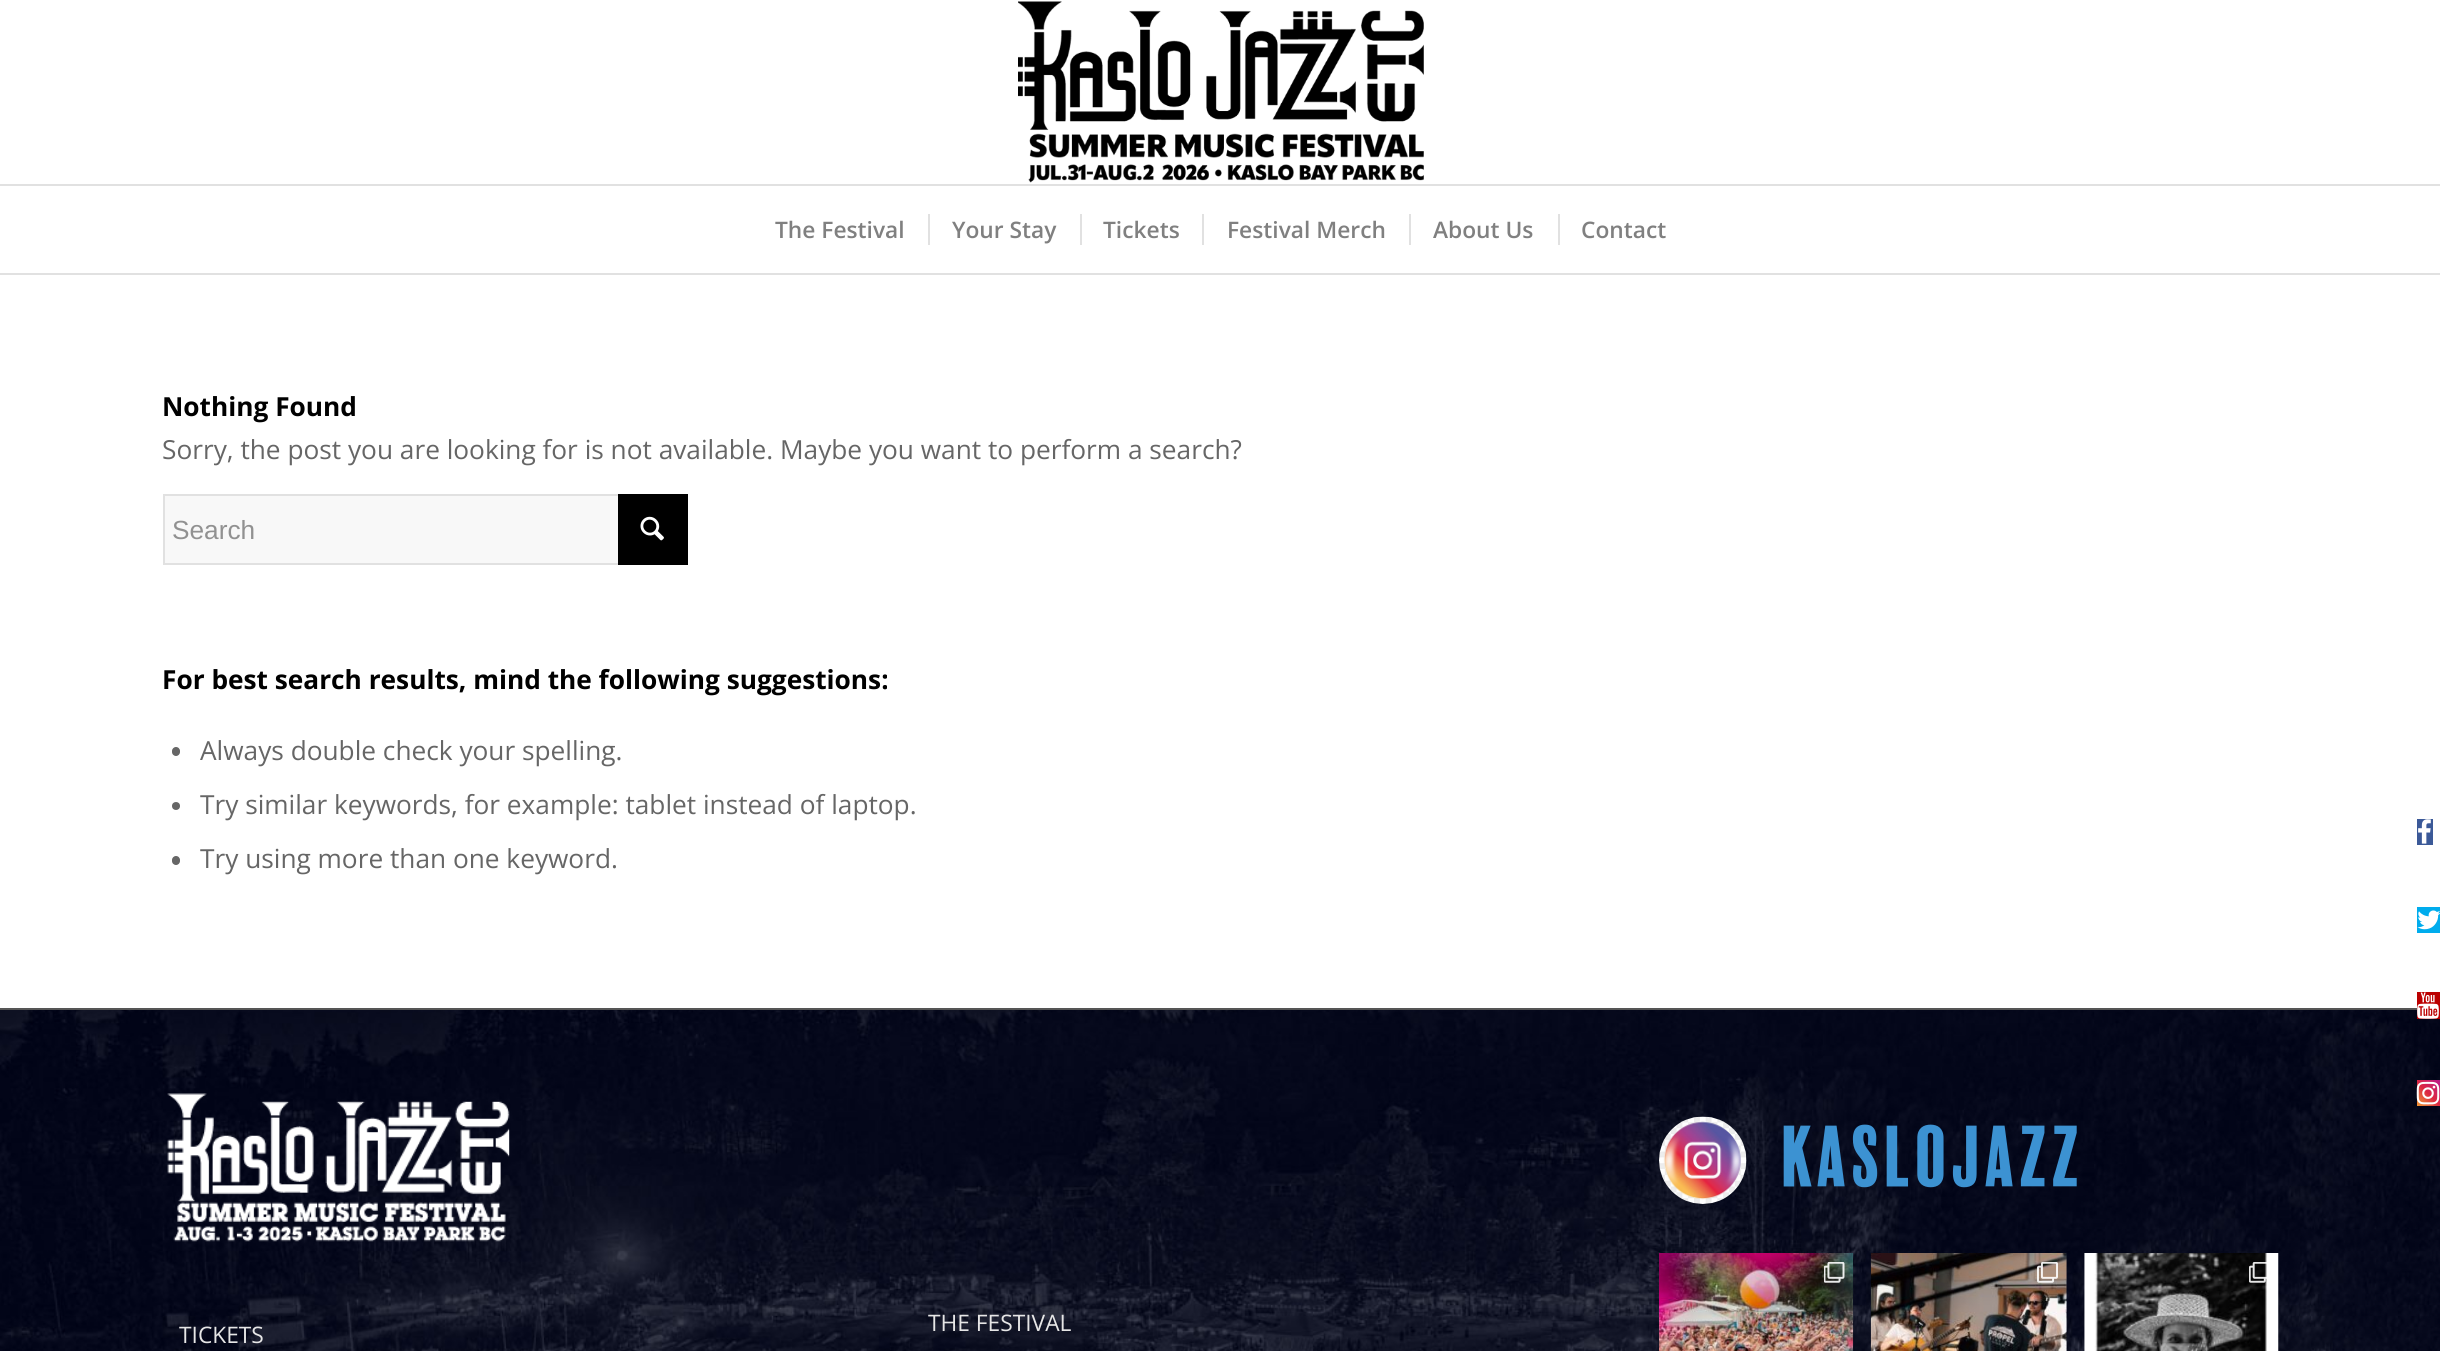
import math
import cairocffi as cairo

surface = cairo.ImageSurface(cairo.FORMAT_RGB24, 2440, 1351)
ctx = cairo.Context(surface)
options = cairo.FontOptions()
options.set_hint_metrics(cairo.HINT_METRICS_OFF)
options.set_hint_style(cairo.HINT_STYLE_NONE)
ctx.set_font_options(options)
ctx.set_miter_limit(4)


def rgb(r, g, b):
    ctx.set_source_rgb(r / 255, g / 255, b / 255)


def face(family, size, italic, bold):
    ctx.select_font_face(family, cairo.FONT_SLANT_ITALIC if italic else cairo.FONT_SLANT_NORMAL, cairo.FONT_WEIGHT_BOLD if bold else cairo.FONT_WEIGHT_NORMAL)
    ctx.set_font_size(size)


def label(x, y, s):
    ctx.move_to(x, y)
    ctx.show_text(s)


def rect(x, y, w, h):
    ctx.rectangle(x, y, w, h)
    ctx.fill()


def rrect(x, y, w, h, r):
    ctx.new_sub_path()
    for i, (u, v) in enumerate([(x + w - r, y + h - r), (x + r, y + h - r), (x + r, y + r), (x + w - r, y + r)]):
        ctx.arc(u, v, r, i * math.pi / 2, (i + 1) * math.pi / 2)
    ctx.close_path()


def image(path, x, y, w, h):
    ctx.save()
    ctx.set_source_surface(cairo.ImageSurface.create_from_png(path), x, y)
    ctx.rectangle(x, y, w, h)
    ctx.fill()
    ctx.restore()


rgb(255, 255, 255)
ctx.paint()
rgb(225, 225, 225)
rect(0, 273, 2440, 2)
image('image0.png', 1018, 1, 406, 182)
rect(0, 184, 2440, 2)
face('Open Sans SemiBold', 22.75, 0, 0)
rgb(128, 128, 128)
label(775, 238, 'The Festival')
label(952, 238, 'Your Stay')
rgb(225, 225, 225)
rect(928, 214, 2, 31)
rgb(128, 128, 128)
label(1103, 238, 'Tickets')
rgb(225, 225, 225)
rect(1080, 214, 2, 31)
rgb(128, 128, 128)
label(1227, 238, 'Festival Merch')
rgb(225, 225, 225)
rect(1202, 214, 2, 31)
rgb(128, 128, 128)
label(1433, 238, 'About Us')
rgb(225, 225, 225)
rect(1409, 214, 2, 31)
rgb(128, 128, 128)
label(1581, 238, 'Contact')
rgb(225, 225, 225)
rect(1558, 214, 2, 31)
face('Open Sans', 26.25, 0, 1)
rgb(0, 0, 0)
label(162, 416, 'Nothing Found')
face('Open Sans', 26.25, 0, 0)
rgb(102, 102, 102)
label(162, 459, 'Sorry, the post you are looking for is not available. Maybe you want to perform a search?')
rgb(248, 248, 248)
rect(165, 496, 453, 67)
ctx.rectangle(164, 495, 523, 69)
rgb(225, 225, 225)
ctx.stroke()
face('Liberation Sans', 26.25, 0, 0)
rgb(145, 145, 145)
label(172, 539, 'Search')
rgb(0, 0, 0)
rect(618, 494, 70, 71)
image('image1.png', 640, 516, 24, 25)
face('Open Sans', 26.25, 0, 1)
label(162, 689, 'For best search results, mind the following suggestions:')
rgb(102, 102, 102)
rrect(172, 747, 8, 9, 4)
ctx.fill()
face('Open Sans', 26.25, 0, 0)
label(200, 760, 'Always double check your spelling.')
ctx.new_path()
ctx.arc(176, 806, 4, 0, 2 * math.pi)
ctx.fill()
label(200, 814, 'Try similar keywords, for example: tablet instead of laptop.')
rrect(172, 856, 8, 9, 4)
ctx.fill()
label(200, 868, 'Try using more than one keyword.')
image('image2.png', 0, 1010, 2440, 341)
rgb(85, 85, 85)
rect(0, 1008, 2417, 2)
image('image3.png', 1659, 1116, 88, 88)
face('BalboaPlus', 79, 0, 0)
rgb(60, 146, 210)
label(1781, 1186, 'kaslojazz')
image('image4.png', 1659, 1253, 195, 98)
image('image5.png', 1824, 1262, 21, 21)
image('image6.png', 1870, 1253, 197, 98)
image('image7.png', 2037, 1262, 21, 21)
image('image8.png', 2084, 1253, 195, 98)
image('image9.png', 2249, 1262, 18, 21)
face('Open Sans', 22.75, 0, 0)
rgb(230, 230, 230)
label(928, 1331, 'THE FESTIVAL')
image('image10.png', 167, 1093, 343, 149)
label(179, 1343, 'TICKETS')
rgb(59, 89, 152)
rect(2417, 819, 16, 26)
image('image11.png', 2418, 819, 13, 25)
rgb(0, 172, 237)
rect(2417, 907, 23, 26)
image('image12.png', 2417, 910, 23, 20)
rgb(187, 0, 0)
rect(2417, 992, 23, 27)
image('image13.png', 2417, 992, 22, 27)
gradient = cairo.LinearGradient(2416, 1105, 2440, 1081)
gradient.add_color_stop_rgba(0, 0.941, 0.58, 0.2, 1)
gradient.add_color_stop_rgba(0.25, 0.902, 0.408, 0.235, 1)
gradient.add_color_stop_rgba(0.5, 0.863, 0.153, 0.263, 1)
gradient.add_color_stop_rgba(0.75, 0.8, 0.137, 0.4, 1)
gradient.add_color_stop_rgba(1, 0.737, 0.094, 0.533, 1)
ctx.set_source(gradient)
rect(2417, 1080, 23, 26)
image('image14.png', 2416, 1081, 24, 24)
surface.write_to_png('render.png')
